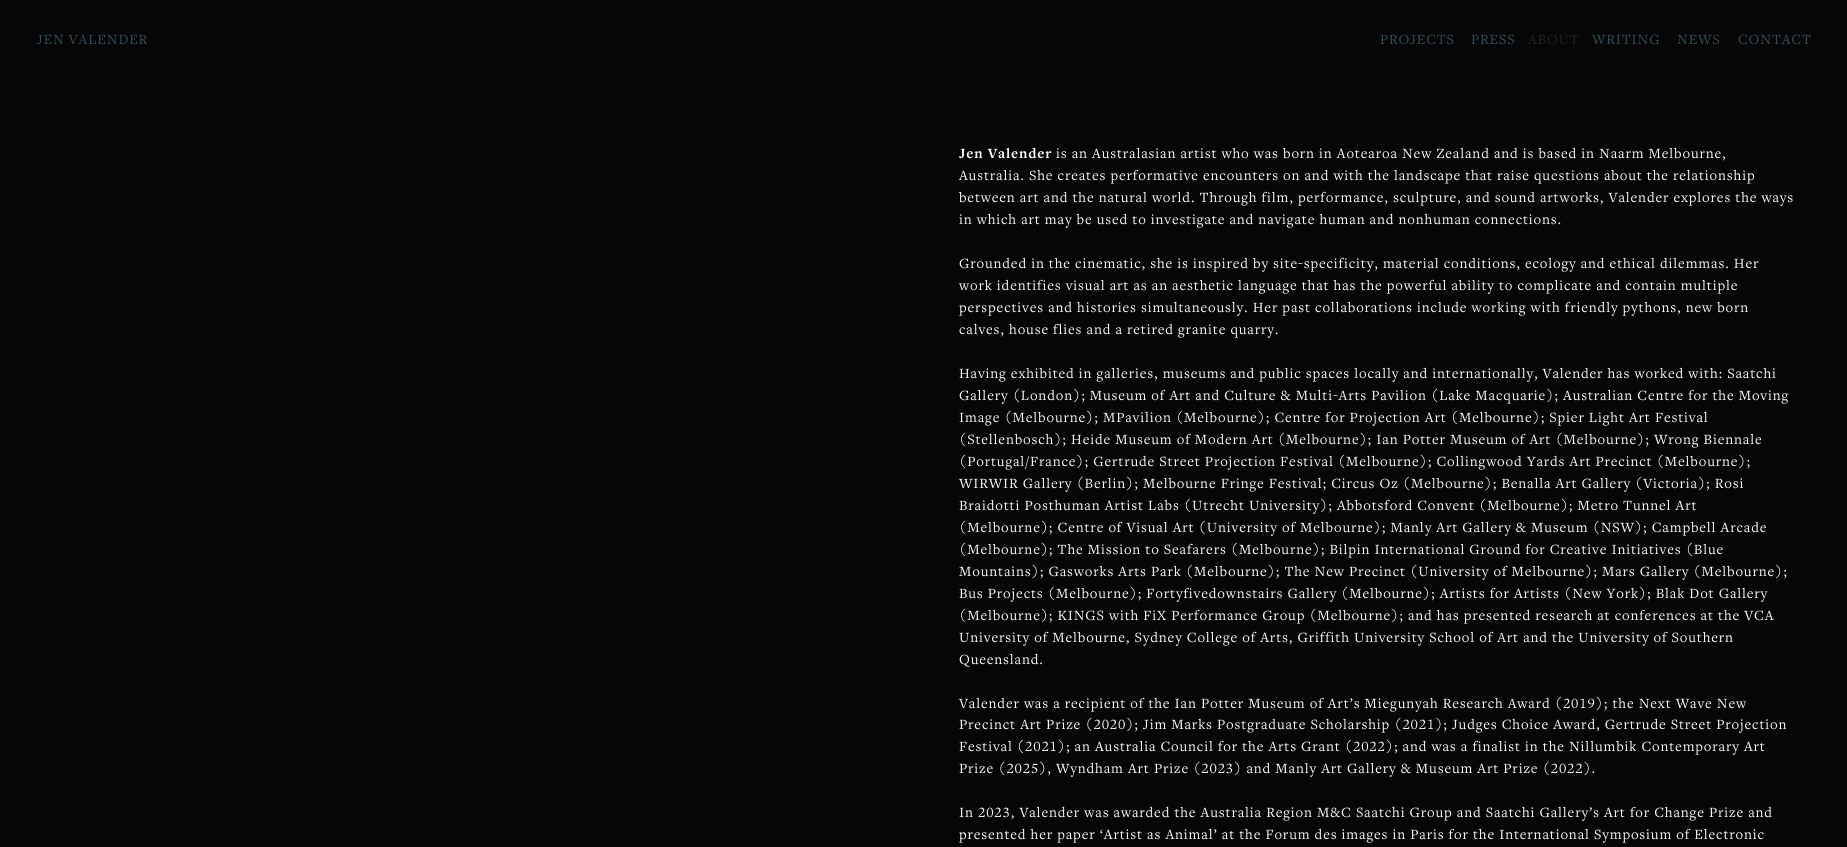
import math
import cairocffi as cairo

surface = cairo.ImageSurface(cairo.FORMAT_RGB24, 1847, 847)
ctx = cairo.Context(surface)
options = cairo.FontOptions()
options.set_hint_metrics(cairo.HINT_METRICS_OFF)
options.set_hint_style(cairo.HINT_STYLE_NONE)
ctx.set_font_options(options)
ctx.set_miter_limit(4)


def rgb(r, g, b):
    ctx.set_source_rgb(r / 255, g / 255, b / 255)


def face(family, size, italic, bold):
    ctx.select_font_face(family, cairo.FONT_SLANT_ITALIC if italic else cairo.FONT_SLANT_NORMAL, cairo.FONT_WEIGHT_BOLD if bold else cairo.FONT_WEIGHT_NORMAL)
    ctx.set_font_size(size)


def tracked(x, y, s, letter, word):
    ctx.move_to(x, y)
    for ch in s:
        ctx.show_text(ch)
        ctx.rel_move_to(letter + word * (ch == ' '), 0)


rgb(6, 6, 6)
ctx.paint()
face('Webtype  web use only', 14.65, 0, 0)
rgb(52, 75, 86)
tracked(37, 44, 'JEN VALENDER', 0.85, 0)
tracked(1380, 44, 'PROJECTS', 0.85, 0)
tracked(1471, 44, 'PRESS', 0.85, 0)
rgb(24, 34, 38)
tracked(1528, 44, 'ABOUT', 0.85, 0)
rgb(52, 75, 86)
tracked(1592, 44, 'WRITING', 0.85, 0)
tracked(1677, 44, 'NEWS', 0.85, 0)
tracked(1738, 44, 'CONTACT', 0.85, 0)
face('Webtype  web use only', 14.65, 0, 1)
rgb(252, 249, 249)
tracked(959, 158, 'Jen Valender', 0.85, 0)
face('Webtype  web use only', 14.65, 0, 0)
tracked(1056, 158, 'is an Australasian artist who was born in Aotearoa New Zealand and is based in Naarm Melbourne,', 0.85, 0)
tracked(959, 180, 'Australia. She creates performative encounters on and with the landscape that raise questions about the relationship', 0.85, 0)
tracked(959, 202, 'between art and the natural world. Through film, performance, sculpture, and sound artworks, Valender explores the ways', 0.85, 0)
tracked(959, 224, 'in which art may be used to investigate and navigate human and nonhuman connections.', 0.85, 0)
tracked(959, 268, 'Grounded in the cinematic, she is inspired by site-specificity, material conditions, ecology and ethical dilemmas. Her', 0.85, 0)
tracked(959, 290, 'work identifies visual art as an aesthetic language that has the powerful ability to complicate and contain multiple', 0.85, 0)
tracked(959, 312, 'perspectives and histories simultaneously. Her past collaborations include working with friendly pythons, new born', 0.85, 0)
tracked(959, 334, 'calves, house flies and a retired granite quarry.', 0.85, 0)
tracked(959, 378, 'Having exhibited in galleries, museums and public spaces locally and internationally, Valender has worked with: Saatchi', 0.85, 0)
tracked(959, 400, 'Gallery (London); Museum of Art and Culture & Multi-Arts Pavilion (Lake Macquarie); Australian Centre for the Moving', 0.85, 0)
tracked(959, 422, 'Image (Melbourne); MPavilion (Melbourne); Centre for Projection Art (Melbourne); Spier Light Art Festival', 0.85, 0)
tracked(959, 444, '(Stellenbosch); Heide Museum of Modern Art (Melbourne); Ian Potter Museum of Art (Melbourne); Wrong Biennale', 0.85, 0)
tracked(959, 466, '(Portugal/France); Gertrude Street Projection Festival (Melbourne); Collingwood Yards Art Precinct (Melbourne);', 0.85, 0)
tracked(959, 488, 'WIRWIR Gallery (Berlin); Melbourne Fringe Festival; Circus Oz (Melbourne); Benalla Art Gallery (Victoria); Rosi', 0.85, 0)
tracked(959, 510, 'Braidotti Posthuman Artist Labs (Utrecht University); Abbotsford Convent (Melbourne); Metro Tunnel Art', 0.85, 0)
tracked(959, 532, '(Melbourne); Centre of Visual Art (University of Melbourne); Manly Art Gallery & Museum (NSW); Campbell Arcade', 0.85, 0)
tracked(959, 554, '(Melbourne); The Mission to Seafarers (Melbourne); Bilpin International Ground for Creative Initiatives (Blue', 0.85, 0)
tracked(959, 576, 'Mountains); Gasworks Arts Park (Melbourne); The New Precinct (University of Melbourne); Mars Gallery (Melbourne);', 0.85, 0)
tracked(959, 598, 'Bus Projects (Melbourne); Fortyfivedownstairs Gallery (Melbourne); Artists for Artists (New York); Blak Dot Gallery', 0.85, 0)
tracked(959, 620, '(Melbourne); KINGS with FiX Performance Group (Melbourne); and has presented research at conferences at the VCA', 0.85, 0)
tracked(959, 642, 'University of Melbourne, Sydney College of Arts, Griffith University School of Art and the University of Southern', 0.85, 0)
tracked(959, 664, 'Queensland.', 0.85, 0)
tracked(959, 708, 'Valender was a recipient of the Ian Potter Museum of Art’s Miegunyah Research Award (2019); the Next Wave New', 0.85, 0)
tracked(959, 729, 'Precinct Art Prize (2020); Jim Marks Postgraduate Scholarship (2021); Judges Choice Award, Gertrude Street Projection', 0.85, 0)
tracked(959, 751, 'Festival (2021); an Australia Council for the Arts Grant (2022); and was a finalist in the Nillumbik Contemporary Art', 0.85, 0)
tracked(959, 773, 'Prize (2025), Wyndham Art Prize (2023) and Manly Art Gallery & Museum Art Prize (2022).', 0.85, 0)
tracked(959, 817, 'In 2023, Valender was awarded the Australia Region M&C Saatchi Group and Saatchi Gallery’s Art for Change Prize and', 0.85, 0)
tracked(959, 839, 'presented her paper ‘Artist as Animal’ at the Forum des images in Paris for the International Symposium of Electronic', 0.85, 0)
surface.write_to_png('render.png')
